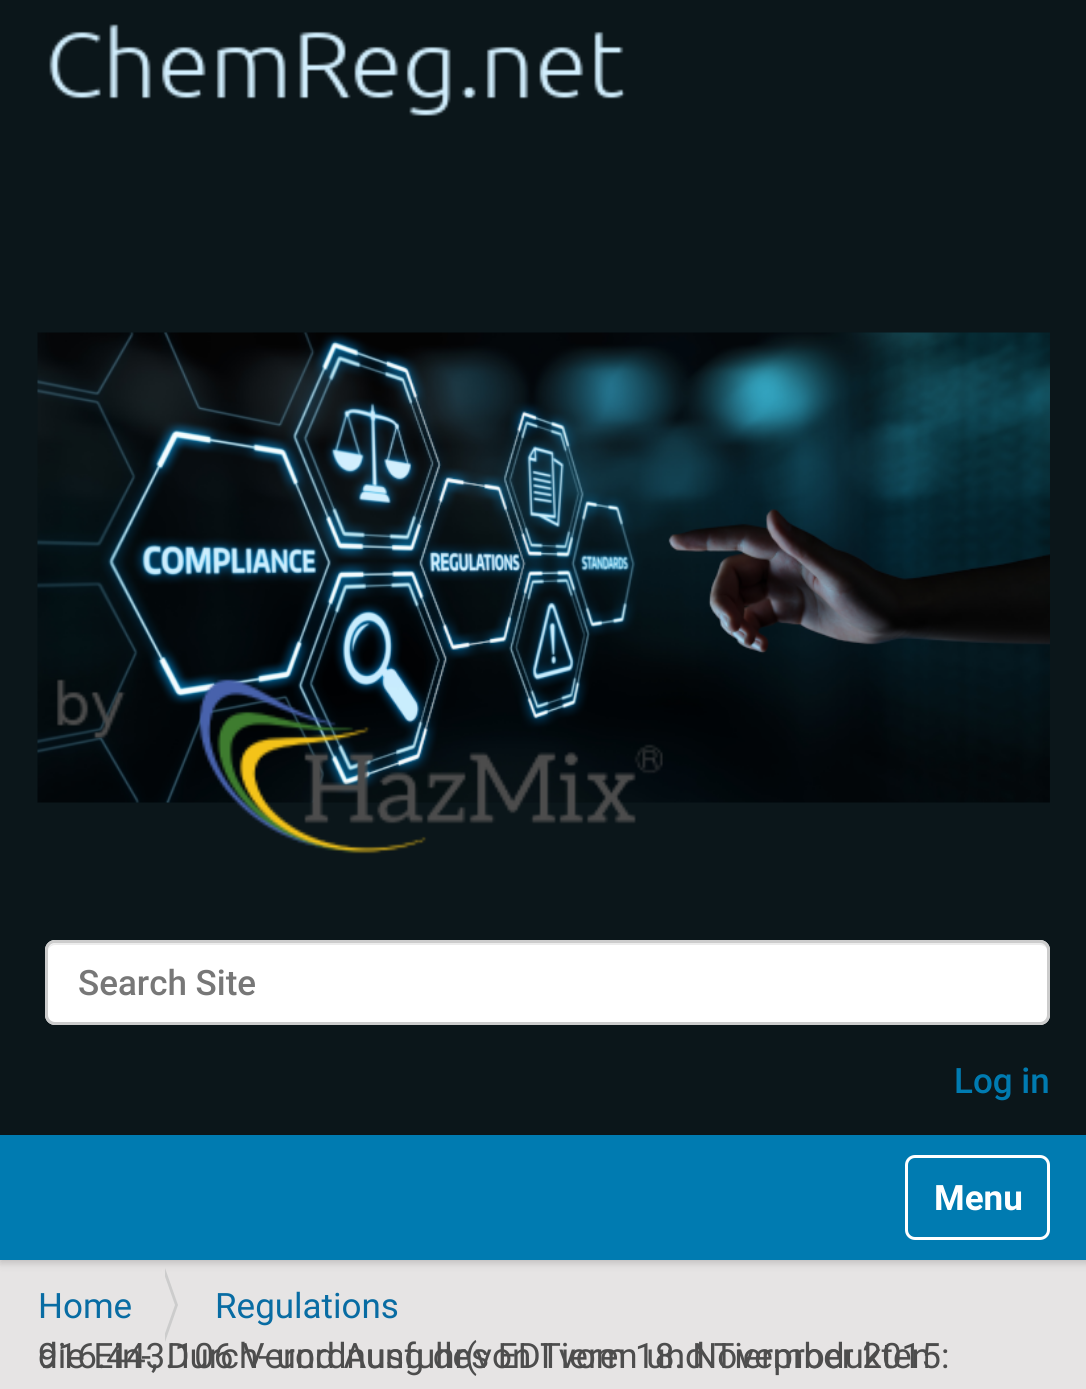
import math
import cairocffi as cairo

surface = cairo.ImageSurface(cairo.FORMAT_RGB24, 1086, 1389)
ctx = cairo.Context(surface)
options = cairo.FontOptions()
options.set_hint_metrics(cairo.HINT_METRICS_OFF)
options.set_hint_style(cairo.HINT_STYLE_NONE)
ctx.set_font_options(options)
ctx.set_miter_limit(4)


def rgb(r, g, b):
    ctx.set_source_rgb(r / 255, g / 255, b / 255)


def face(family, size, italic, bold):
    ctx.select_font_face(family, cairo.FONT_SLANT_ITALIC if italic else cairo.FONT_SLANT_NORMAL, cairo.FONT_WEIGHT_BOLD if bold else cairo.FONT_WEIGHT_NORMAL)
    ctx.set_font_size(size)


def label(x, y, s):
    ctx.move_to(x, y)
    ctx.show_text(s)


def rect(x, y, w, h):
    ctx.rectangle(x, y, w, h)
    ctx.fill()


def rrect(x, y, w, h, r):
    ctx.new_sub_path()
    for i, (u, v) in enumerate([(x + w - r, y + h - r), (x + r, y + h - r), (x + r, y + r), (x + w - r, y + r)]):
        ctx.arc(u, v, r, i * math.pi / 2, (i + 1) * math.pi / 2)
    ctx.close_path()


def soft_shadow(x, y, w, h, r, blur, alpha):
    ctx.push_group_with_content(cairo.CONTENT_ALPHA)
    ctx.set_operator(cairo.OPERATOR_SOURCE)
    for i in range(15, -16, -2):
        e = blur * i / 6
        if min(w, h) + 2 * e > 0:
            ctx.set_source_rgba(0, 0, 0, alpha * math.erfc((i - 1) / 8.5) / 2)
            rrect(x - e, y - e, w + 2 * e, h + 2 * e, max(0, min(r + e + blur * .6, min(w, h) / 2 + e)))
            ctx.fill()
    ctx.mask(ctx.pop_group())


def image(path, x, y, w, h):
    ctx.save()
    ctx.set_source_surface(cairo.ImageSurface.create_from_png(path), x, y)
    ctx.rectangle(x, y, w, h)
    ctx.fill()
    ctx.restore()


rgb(11, 22, 26)
ctx.paint()
image('image0.png', 37, 332, 1013, 471)
image('image1.png', 49, 24, 614, 830)
rgb(255, 255, 255)
rrect(45, 940, 1005, 85, 10)
ctx.fill()
rgb(236, 236, 236)
ctx.new_path()
ctx.move_to(55, 945)
ctx.line_to(1040, 945)
ctx.curve_to(1044, 945, 1048, 948, 1048, 952)
ctx.curve_to(1048, 947, 1045, 943, 1040, 943)
ctx.line_to(56, 943)
ctx.curve_to(51, 943, 48, 947, 48, 952)
ctx.curve_to(48, 948, 51, 945, 55, 945)
ctx.close_path()
ctx.fill()
rrect(46.5, 941.5, 1002, 82, 8.5)
rgb(204, 204, 204)
ctx.set_line_width(3)
ctx.stroke()
face('Roboto Medium', 35, 0, 0)
rgb(119, 119, 119)
label(78, 995, 'Search Site')
rgb(0, 123, 177)
label(954, 1093, 'Log in')
rgb(230, 228, 228)
rect(0, 1260, 1086, 129)
rgb(0, 0, 0)
soft_shadow(0, 1138, 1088, 125, 0, 4, 0.17)
rgb(0, 123, 177)
rect(0, 1135, 1086, 125)
rrect(906.5, 1156.5, 142, 82, 8.5)
rgb(255, 255, 255)
ctx.stroke()
face('Roboto', 35, 0, 1)
label(934, 1210, 'Menu')
face('Roboto', 35, 0, 0)
rgb(8, 108, 163)
label(38, 1318, 'Home')
rgb(204, 204, 204)
ctx.new_path()
ctx.move_to(165, 1342)
ctx.line_to(165, 1268)
ctx.line_to(178, 1305)
ctx.close_path()
ctx.fill()
rgb(230, 228, 228)
ctx.new_path()
ctx.move_to(162, 1342)
ctx.line_to(162, 1268)
ctx.line_to(175, 1305)
ctx.close_path()
ctx.fill()
rgb(8, 108, 163)
label(215, 1318, 'Regulations')
rgb(77, 77, 77)
label(38, 1368, '916.443.106 Verordnung des EDI vom 18. November 2015:')
label(38, 1368, 'die Ein-, Durch- und Ausfuhr von Tieren und Tierprodukten')
label(465, 1368, '(')
surface.write_to_png('render.png')
